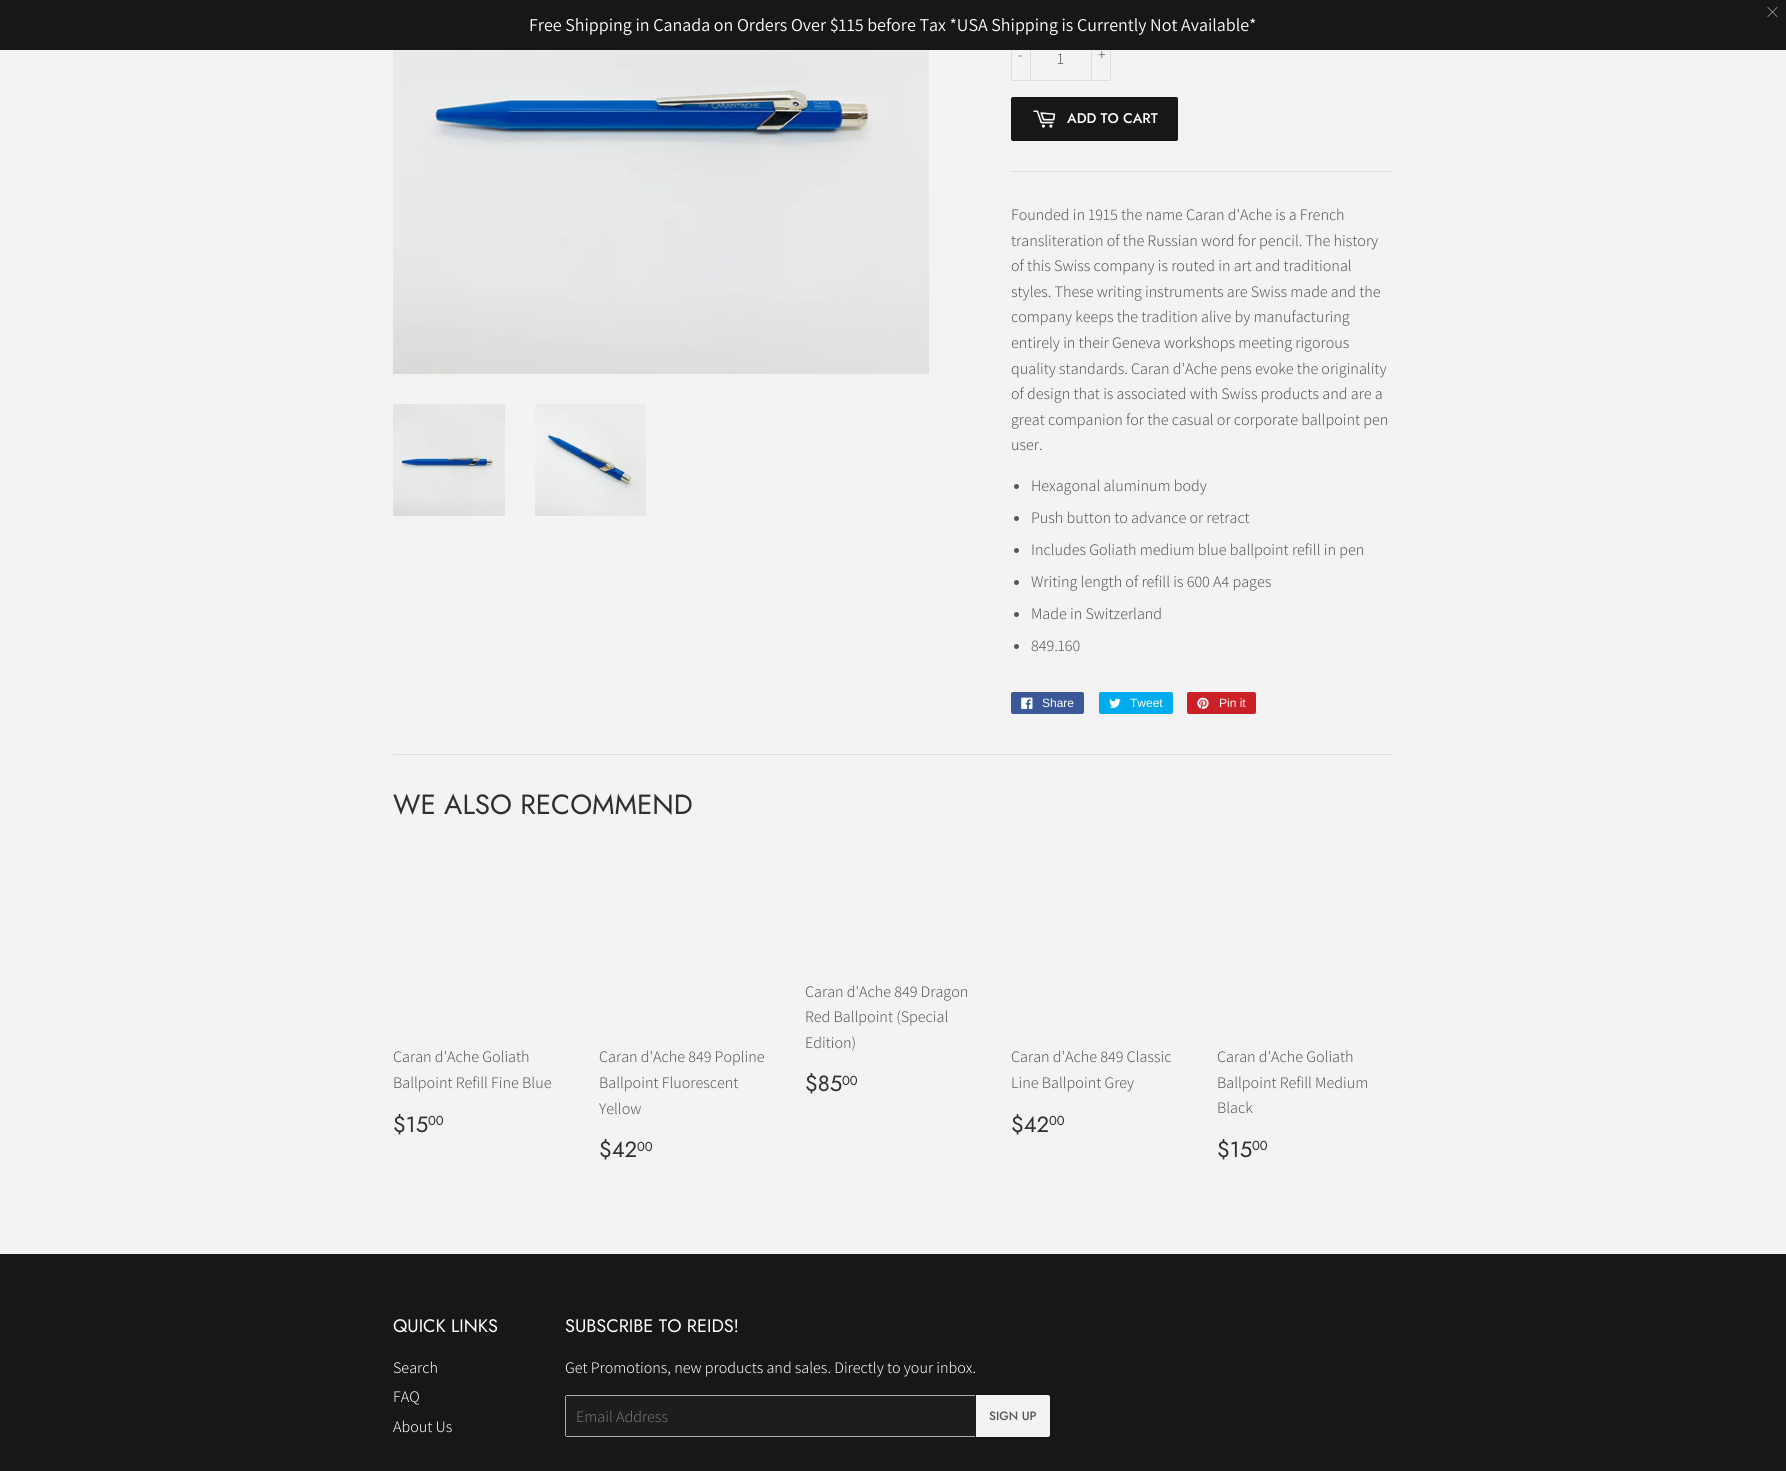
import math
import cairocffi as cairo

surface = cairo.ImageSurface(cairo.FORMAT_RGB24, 1786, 1471)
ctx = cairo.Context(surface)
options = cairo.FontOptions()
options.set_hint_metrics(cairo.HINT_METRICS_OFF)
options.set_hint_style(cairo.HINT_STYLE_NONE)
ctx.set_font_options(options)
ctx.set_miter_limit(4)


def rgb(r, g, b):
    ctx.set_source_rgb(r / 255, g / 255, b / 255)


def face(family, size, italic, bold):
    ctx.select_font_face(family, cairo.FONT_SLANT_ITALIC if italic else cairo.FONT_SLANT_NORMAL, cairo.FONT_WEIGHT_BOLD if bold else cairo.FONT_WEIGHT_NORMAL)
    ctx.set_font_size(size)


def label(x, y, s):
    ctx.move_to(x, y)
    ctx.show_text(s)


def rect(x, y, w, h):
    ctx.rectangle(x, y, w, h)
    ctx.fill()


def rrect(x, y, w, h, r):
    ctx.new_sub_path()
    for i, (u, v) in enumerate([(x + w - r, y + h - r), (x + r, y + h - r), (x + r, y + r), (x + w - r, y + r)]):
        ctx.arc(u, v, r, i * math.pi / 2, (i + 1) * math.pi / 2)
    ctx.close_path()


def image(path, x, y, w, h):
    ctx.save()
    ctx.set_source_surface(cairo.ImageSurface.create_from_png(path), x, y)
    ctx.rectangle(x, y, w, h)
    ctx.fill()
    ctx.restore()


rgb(243, 243, 243)
ctx.paint()
rrect(1011.5, 37.5, 99, 43, 1.5)
rgb(222, 222, 222)
ctx.set_line_width(1)
ctx.stroke()
rgb(24, 23, 23)
rect(0, 0, 1786, 50)
rgb(168, 168, 168)
ctx.new_path()
ctx.move_to(1767.5, 7)
ctx.line_to(1768, 7)
ctx.line_to(1777.5, 16.5)
ctx.line_to(1777.5, 17)
ctx.line_to(1777, 17)
ctx.line_to(1767.5, 7.5)
ctx.close_path()
ctx.fill()
ctx.new_path()
ctx.move_to(1777.5, 7)
ctx.line_to(1777.5, 7.5)
ctx.line_to(1768, 17)
ctx.line_to(1767.5, 17)
ctx.line_to(1767.5, 16.5)
ctx.line_to(1777, 7)
ctx.close_path()
ctx.fill()
face('Assistant ExtraLight', 18, 0, 0)
rgb(255, 255, 255)
label(529, 31, 'Free Shipping in Canada on Orders Over $115 before Tax *USA Shipping is Currently Not Available*')
image('image0.png', 393, 50, 536, 324)
image('image1.png', 393, 404, 112, 112)
image('image2.png', 535, 404, 111, 112)
rgb(222, 222, 222)
rect(1030, 50, 1, 31)
face('Assistant Light', 16, 0, 0)
rgb(88, 87, 87)
label(1018, 60, '-')
label(1057, 64, '1')
rgb(222, 222, 222)
rect(1091, 50, 1, 31)
rgb(88, 87, 87)
label(1098, 60, '+')
rgb(24, 23, 23)
rrect(1011, 97, 167, 44, 2)
ctx.fill()
image('image3.png', 1033, 110, 23, 18)
face('Jost Medium', 14, 0, 0)
rgb(255, 255, 255)
label(1067, 123, 'ADD TO CART')
rgb(222, 222, 222)
rect(1011, 171, 382, 1)
face('Assistant Light', 16, 0, 0)
rgb(88, 87, 87)
label(1011, 220, 'Founded in 1915 the name Caran d\'Ache is a French')
label(1011, 246, 'transliteration of the Russian word for pencil. The history')
label(1011, 271, 'of this Swiss company is routed in art and traditional')
label(1011, 297, 'styles. These writing instruments are Swiss made and the')
label(1011, 322, 'company keeps the tradition alive by manufacturing')
label(1011, 348, 'entirely in their Geneva workshops meeting rigorous')
label(1011, 374, 'quality standards. Caran d\'Ache pens evoke the originality')
label(1011, 399, 'of design that is associated with Swiss products and are a')
label(1011, 425, 'great companion for the casual or corporate ballpoint pen')
label(1011, 450, 'user.')
ctx.new_path()
ctx.arc(1016.5, 486.5, 2.5, 0, 2 * math.pi)
ctx.fill()
label(1031, 491, 'Hexagonal aluminum body')
ctx.new_path()
ctx.arc(1016.5, 518.5, 2.5, 0, 2 * math.pi)
ctx.fill()
label(1031, 523, 'Push button to advance or retract')
ctx.new_path()
ctx.arc(1016.5, 550.5, 2.5, 0, 2 * math.pi)
ctx.fill()
label(1031, 555, 'Includes Goliath medium blue ballpoint refill in pen')
ctx.new_path()
ctx.arc(1016.5, 582.5, 2.5, 0, 2 * math.pi)
ctx.fill()
label(1031, 587, 'Writing length of refill is 600 A4 pages')
ctx.new_path()
ctx.arc(1016.5, 614.5, 2.5, 0, 2 * math.pi)
ctx.fill()
label(1031, 619, 'Made in Switzerland')
ctx.new_path()
ctx.arc(1016.5, 646.5, 2.5, 0, 2 * math.pi)
ctx.fill()
label(1031, 651, '849.160')
rgb(59, 89, 152)
rrect(1011, 692, 73, 22, 2)
ctx.fill()
image('image4.png', 1021, 697, 12, 12)
face('Liberation Sans', 12, 0, 0)
rgb(255, 255, 255)
label(1042, 707, 'Share')
rgb(0, 172, 237)
rrect(1099, 692, 74, 22, 2)
ctx.fill()
image('image5.png', 1109, 698, 12, 10)
rgb(255, 255, 255)
label(1130, 707, 'Tweet')
rgb(203, 32, 39)
rrect(1187, 692, 69, 22, 2)
ctx.fill()
image('image6.png', 1197, 697, 12, 12)
rgb(255, 255, 255)
label(1219, 707, 'Pin it')
rgb(222, 222, 222)
rect(393, 754, 1000, 1)
face('Jost', 27.75, 0, 0)
rgb(47, 47, 47)
label(393, 814, 'WE ALSO RECOMMEND')
face('Assistant Light', 16, 0, 0)
rgb(88, 87, 87)
label(393, 1062, 'Caran d\'Ache Goliath')
label(393, 1088, 'Ballpoint Refill Fine Blue')
face('Jost', 22, 0, 0)
rgb(47, 47, 47)
label(393, 1132, '$15')
face('Jost', 13, 0, 0)
label(428, 1125, '00')
face('Assistant Light', 16, 0, 0)
rgb(88, 87, 87)
label(599, 1062, 'Caran d\'Ache 849 Popline')
label(599, 1088, 'Ballpoint Fluorescent')
label(599, 1114, 'Yellow')
face('Jost', 22, 0, 0)
rgb(47, 47, 47)
label(599, 1157, '$42')
face('Jost', 13, 0, 0)
label(637, 1151, '00')
face('Assistant Light', 16, 0, 0)
rgb(88, 87, 87)
label(805, 997, 'Caran d\'Ache 849 Dragon')
label(805, 1022, 'Red Ballpoint (Special')
label(805, 1048, 'Edition)')
face('Jost', 22, 0, 0)
rgb(47, 47, 47)
label(805, 1091, '$85')
face('Jost', 13, 0, 0)
label(842, 1085, '00')
face('Assistant Light', 16, 0, 0)
rgb(88, 87, 87)
label(1011, 1062, 'Caran d\'Ache 849 Classic')
label(1011, 1088, 'Line Ballpoint Grey')
face('Jost', 22, 0, 0)
rgb(47, 47, 47)
label(1011, 1132, '$42')
face('Jost', 13, 0, 0)
label(1049, 1125, '00')
face('Assistant Light', 16, 0, 0)
rgb(88, 87, 87)
label(1217, 1062, 'Caran d\'Ache Goliath')
label(1217, 1088, 'Ballpoint Refill Medium')
label(1217, 1113, 'Black')
face('Jost', 22, 0, 0)
rgb(47, 47, 47)
label(1217, 1157, '$15')
face('Jost', 13, 0, 0)
label(1252, 1150, '00')
rgb(24, 23, 23)
rect(0, 1254, 1786, 217)
face('Jost', 18.1, 0, 0)
rgb(255, 255, 255)
label(393, 1332, 'QUICK LINKS')
face('Assistant Light', 16, 0, 0)
label(393, 1373, 'Search')
label(393, 1402, 'FAQ')
label(393, 1432, 'About Us')
face('Jost', 18.1, 0, 0)
label(565, 1332, 'SUBSCRIBE TO REIDS!')
face('Assistant Light', 16, 0, 0)
label(565, 1373, 'Get Promotions, new products and sales. Directly to your inbox.')
rgb(30, 29, 29)
rrect(565, 1395, 411, 42, 2)
ctx.fill()
rgb(171, 171, 171)
rect(566, 1395, 409, 1)
rect(566, 1436, 409, 1)
rect(565, 1396, 1, 40)
rgb(117, 117, 117)
label(576, 1422, 'Email Address')
rgb(243, 243, 243)
ctx.new_path()
ctx.move_to(976, 1395)
ctx.line_to(1048, 1395)
ctx.curve_to(1049, 1395, 1050, 1396, 1050, 1397)
ctx.line_to(1050, 1435)
ctx.curve_to(1050, 1436, 1049, 1437, 1048, 1437)
ctx.line_to(976, 1437)
ctx.close_path()
ctx.fill()
face('Jost Medium', 12, 0, 0)
rgb(88, 87, 87)
label(989, 1420, 'SIGN UP')
surface.write_to_png('render.png')
